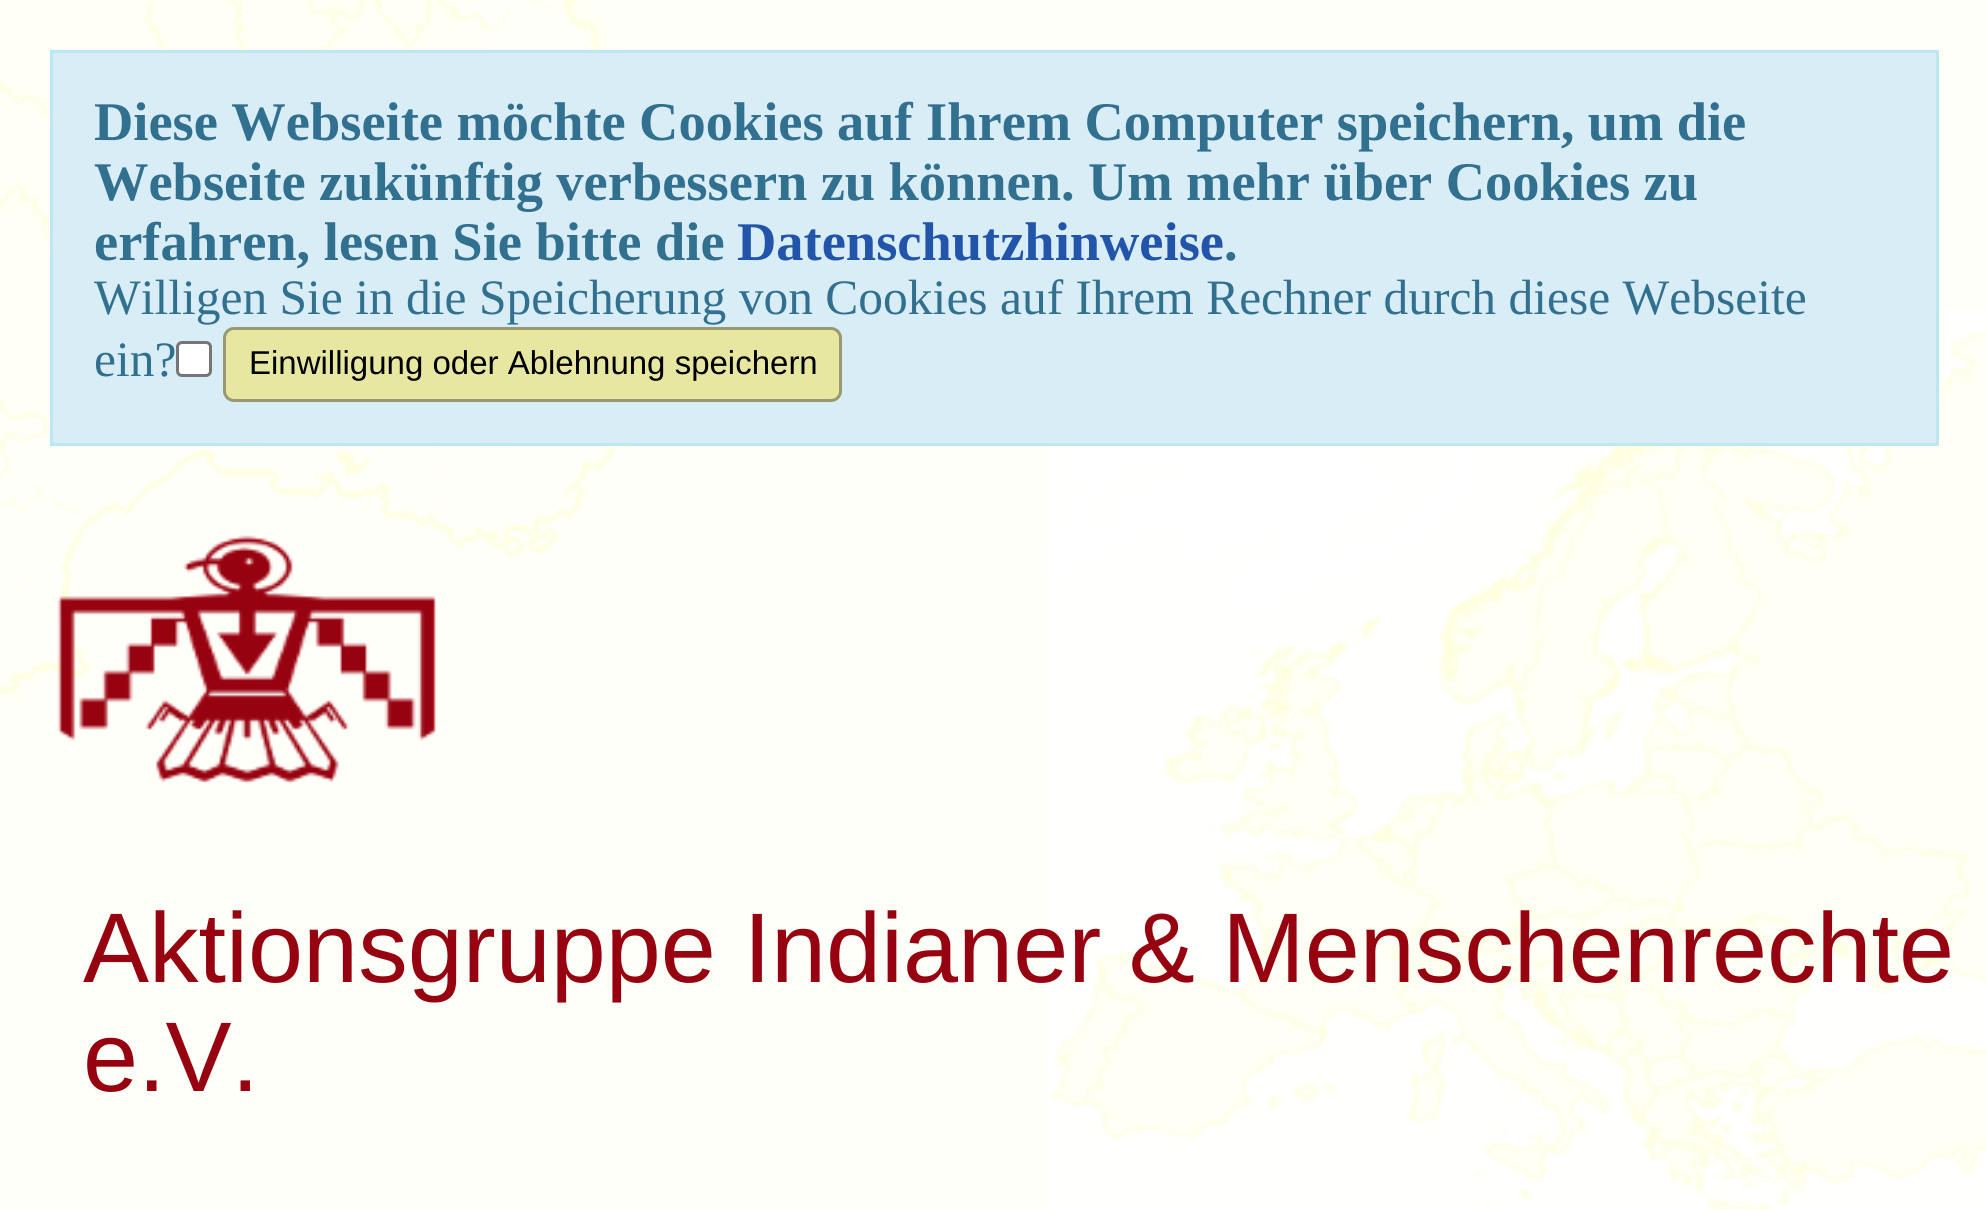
import math
import cairocffi as cairo

surface = cairo.ImageSurface(cairo.FORMAT_RGB24, 1986, 1209)
ctx = cairo.Context(surface)
options = cairo.FontOptions()
options.set_hint_metrics(cairo.HINT_METRICS_OFF)
options.set_hint_style(cairo.HINT_STYLE_NONE)
ctx.set_font_options(options)
ctx.set_miter_limit(4)


def rgb(r, g, b):
    ctx.set_source_rgb(r / 255, g / 255, b / 255)


def face(family, size, italic, bold):
    ctx.select_font_face(family, cairo.FONT_SLANT_ITALIC if italic else cairo.FONT_SLANT_NORMAL, cairo.FONT_WEIGHT_BOLD if bold else cairo.FONT_WEIGHT_NORMAL)
    ctx.set_font_size(size)


def label(x, y, s):
    ctx.move_to(x, y)
    ctx.show_text(s)


def tracked(x, y, s, letter, word):
    ctx.move_to(x, y)
    for ch in s:
        ctx.show_text(ch)
        ctx.rel_move_to(letter + word * (ch == ' '), 0)


def rrect(x, y, w, h, r):
    ctx.new_sub_path()
    for i, (u, v) in enumerate([(x + w - r, y + h - r), (x + r, y + h - r), (x + r, y + r), (x + w - r, y + r)]):
        ctx.arc(u, v, r, i * math.pi / 2, (i + 1) * math.pi / 2)
    ctx.close_path()


def image(path, x, y, w, h):
    ctx.save()
    ctx.set_source_surface(cairo.ImageSurface.create_from_png(path), x, y)
    ctx.rectangle(x, y, w, h)
    ctx.fill()
    ctx.restore()


rgb(255, 255, 250)
ctx.paint()
image('image0.png', 1046, 309, 940, 900)
image('image1.png', 0, 0, 719, 704)
rgb(217, 237, 247)
ctx.rectangle(51.5, 51.5, 1886, 393)
ctx.fill_preserve()
rgb(188, 232, 241)
ctx.set_line_width(3)
ctx.stroke()
face('Liberation Serif', 54.45, 0, 1)
rgb(49, 112, 143)
tracked(94, 140, 'Diese Webseite möchte Cookies auf Ihrem Computer speichern, um die', 0, -0.25)
tracked(94, 200, 'Webseite zukünftig verbessern zu können. Um mehr über Cookies zu', 0, -0.25)
label(94, 260, 'erfahren, lesen Sie bitte die')
rgb(34, 85, 170)
label(737, 260, 'Datenschutzhinweise')
rgb(49, 112, 143)
label(1224, 260, '.')
face('Liberation Serif', 49.5, 0, 0)
label(94, 314, 'Willigen Sie in die Speicherung von Cookies auf Ihrem Rechner durch diese Webseite')
label(94, 376, 'ein?')
rgb(255, 255, 255)
rrect(177.5, 342.5, 33, 33, 4.5)
ctx.fill_preserve()
rgb(118, 118, 118)
ctx.stroke()
rgb(231, 231, 161)
rrect(224.5, 328.5, 616, 72, 9.5)
ctx.fill_preserve()
rgb(153, 153, 112)
ctx.stroke()
face('Liberation Sans', 33, 0, 0)
rgb(0, 0, 0)
label(249, 374, 'Einwilligung oder Ablehnung speichern')
image('image2.png', 57, 535, 379, 249)
face('Liberation Sans', 99, 0, 0)
rgb(151, 2, 16)
label(83, 982, 'Aktionsgruppe Indianer & Menschenrechte')
label(83, 1091, 'e.V.')
surface.write_to_png('render.png')
